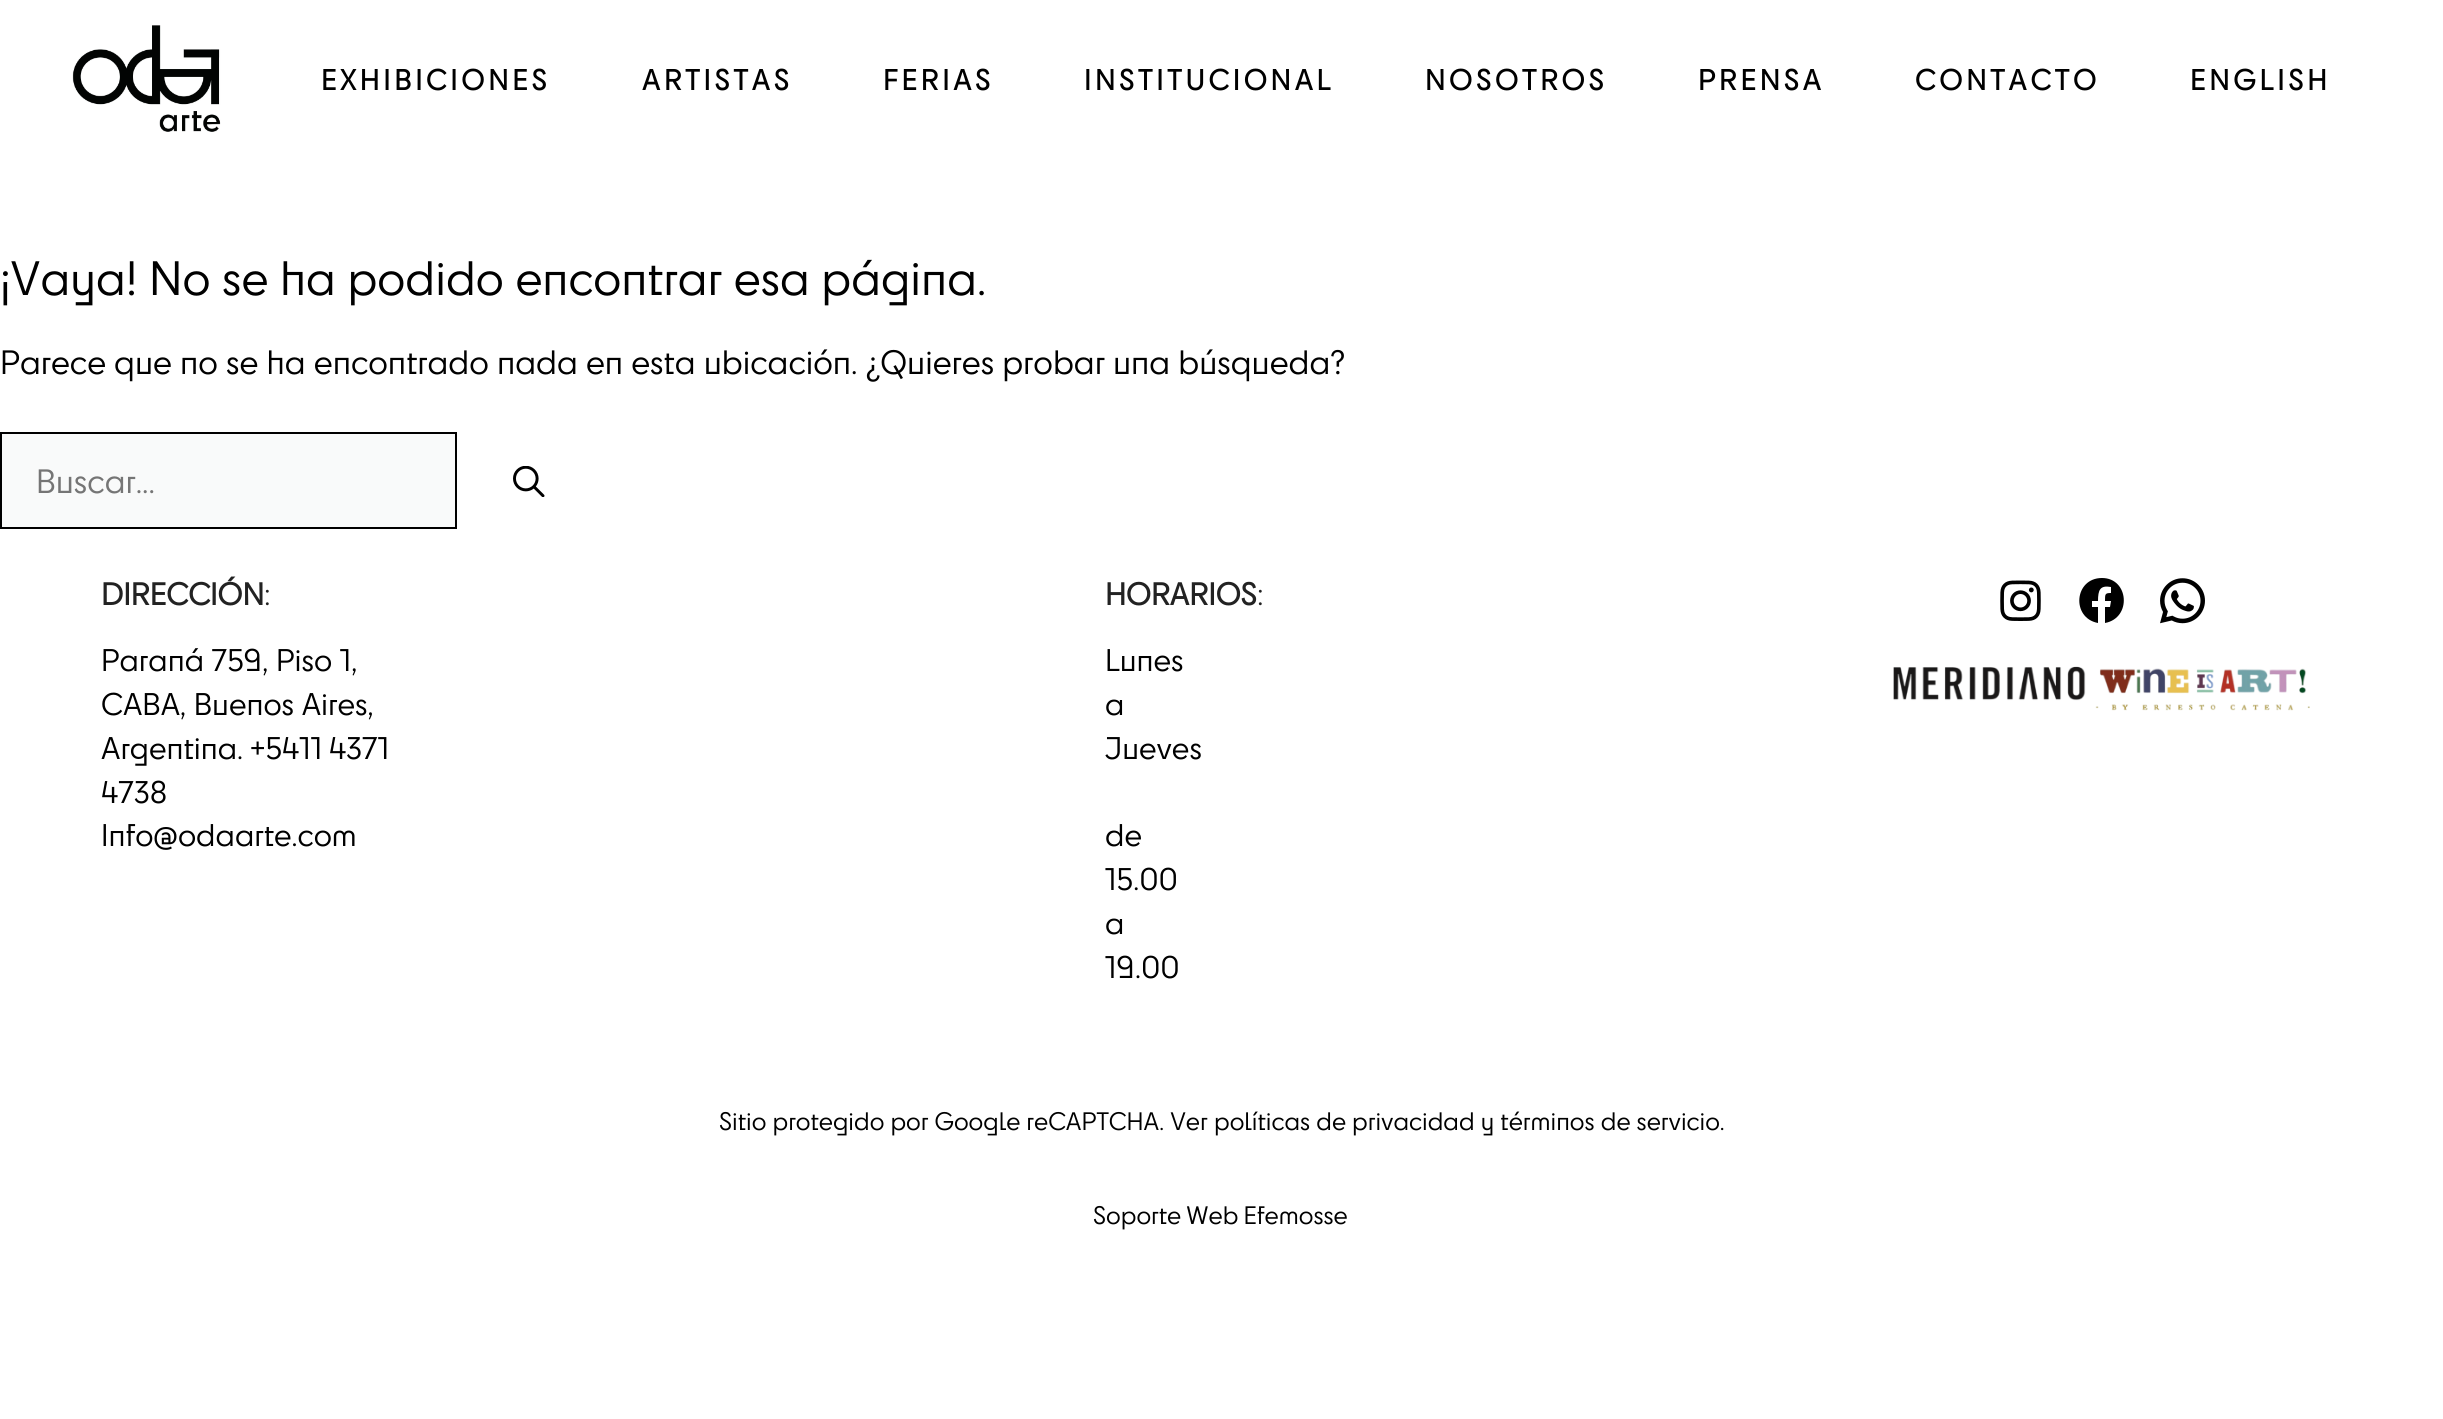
import math
import cairocffi as cairo

surface = cairo.ImageSurface(cairo.FORMAT_RGB24, 2443, 1419)
ctx = cairo.Context(surface)
options = cairo.FontOptions()
options.set_hint_metrics(cairo.HINT_METRICS_OFF)
options.set_hint_style(cairo.HINT_STYLE_NONE)
ctx.set_font_options(options)
ctx.set_miter_limit(4)


def rgb(r, g, b):
    ctx.set_source_rgb(r / 255, g / 255, b / 255)


def face(family, size, italic, bold):
    ctx.select_font_face(family, cairo.FONT_SLANT_ITALIC if italic else cairo.FONT_SLANT_NORMAL, cairo.FONT_WEIGHT_BOLD if bold else cairo.FONT_WEIGHT_NORMAL)
    ctx.set_font_size(size)


def label(x, y, s):
    ctx.move_to(x, y)
    ctx.show_text(s)


def tracked(x, y, s, letter, word):
    ctx.move_to(x, y)
    for ch in s:
        ctx.show_text(ch)
        ctx.rel_move_to(letter + word * (ch == ' '), 0)


def image(path, x, y, w, h):
    ctx.save()
    ctx.set_source_surface(cairo.ImageSurface.create_from_png(path), x, y)
    ctx.rectangle(x, y, w, h)
    ctx.fill()
    ctx.restore()


rgb(255, 255, 255)
ctx.paint()
image('image0.png', 72, 25, 149, 107)
face('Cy', 27, 0, 1)
rgb(0, 0, 0)
tracked(321, 90, 'EXHIBICIONES', 4, 0)
tracked(642, 90, 'ARTISTAS', 4, 0)
tracked(883, 90, 'FERIAS', 4, 0)
tracked(1084, 90, 'INSTITUCIONAL', 4, 0)
tracked(1425, 90, 'NOSOTROS', 4, 0)
tracked(1698, 90, 'PRENSA', 4, 0)
tracked(1915, 90, 'CONTACTO', 4, 0)
tracked(2190, 90, 'ENGLISH', 4, 0)
face('Cy', 45, 0, 0)
label(0, 295, '¡Vaya! No se ha podido encontrar esa página.')
face('Cy', 31.5, 0, 0)
label(0, 374, 'Parece que no se ha encontrado nada en esta ubicación. ¿Quieres probar una búsqueda?')
rgb(249, 250, 250)
ctx.rectangle(1, 433, 455, 95)
ctx.fill_preserve()
rgb(0, 0, 0)
ctx.stroke()
rgb(117, 117, 117)
label(36, 493, 'Buscar...')
image('image1.png', 513, 466, 32, 31)
face('Cy', 29.25, 0, 1)
rgb(34, 34, 34)
label(101, 605, 'DIRECCIÓN')
face('Cy', 29.25, 0, 0)
label(264, 605, ':')
rgb(0, 0, 0)
label(101, 671, 'Paraná 759, Piso 1,')
label(101, 715, 'CABA, Buenos Aires,')
tracked(101, 759, 'Argentina. +5411 4371', 0, -1)
label(101, 803, '4738')
label(101, 846, 'Info@odaarte.com')
face('Cy', 29.25, 0, 1)
rgb(34, 34, 34)
label(1105, 605, 'HORARIOS')
face('Cy', 29.25, 0, 0)
label(1257, 605, ':')
rgb(0, 0, 0)
label(1105, 671, 'Lunes')
label(1105, 715, 'a')
label(1105, 759, 'Jueves')
label(1105, 846, 'de')
label(1105, 890, '15.00')
label(1105, 934, 'a')
label(1105, 978, '19.00')
image('image2.png', 2000, 580, 41, 41)
ctx.new_path()
ctx.move_to(2102, 578)
ctx.curve_to(2074, 578, 2071, 618, 2098, 623)
ctx.line_to(2098, 607)
ctx.line_to(2092, 607)
ctx.line_to(2092, 601)
ctx.line_to(2098, 601)
ctx.curve_to(2098, 590, 2100, 585, 2111, 587)
ctx.line_to(2111, 593)
ctx.curve_to(2105, 593, 2105, 594, 2105, 601)
ctx.line_to(2111, 601)
ctx.line_to(2110, 607)
ctx.line_to(2105, 607)
ctx.line_to(2105, 623)
ctx.curve_to(2132, 618, 2129, 578, 2102, 578)
ctx.close_path()
ctx.fill()
image('image3.png', 2160, 578, 45, 46)
image('image4.png', 1893, 666, 417, 45)
face('Cy', 23.6, 0, 0)
label(719, 1130, 'Sitio protegido por Google reCAPTCHA. Ver')
label(1214, 1130, 'políticas de privacidad y términos de servicio.')
tracked(1093, 1224, 'Soporte Web Efemosse', 0, -1)
surface.write_to_png('render.png')
